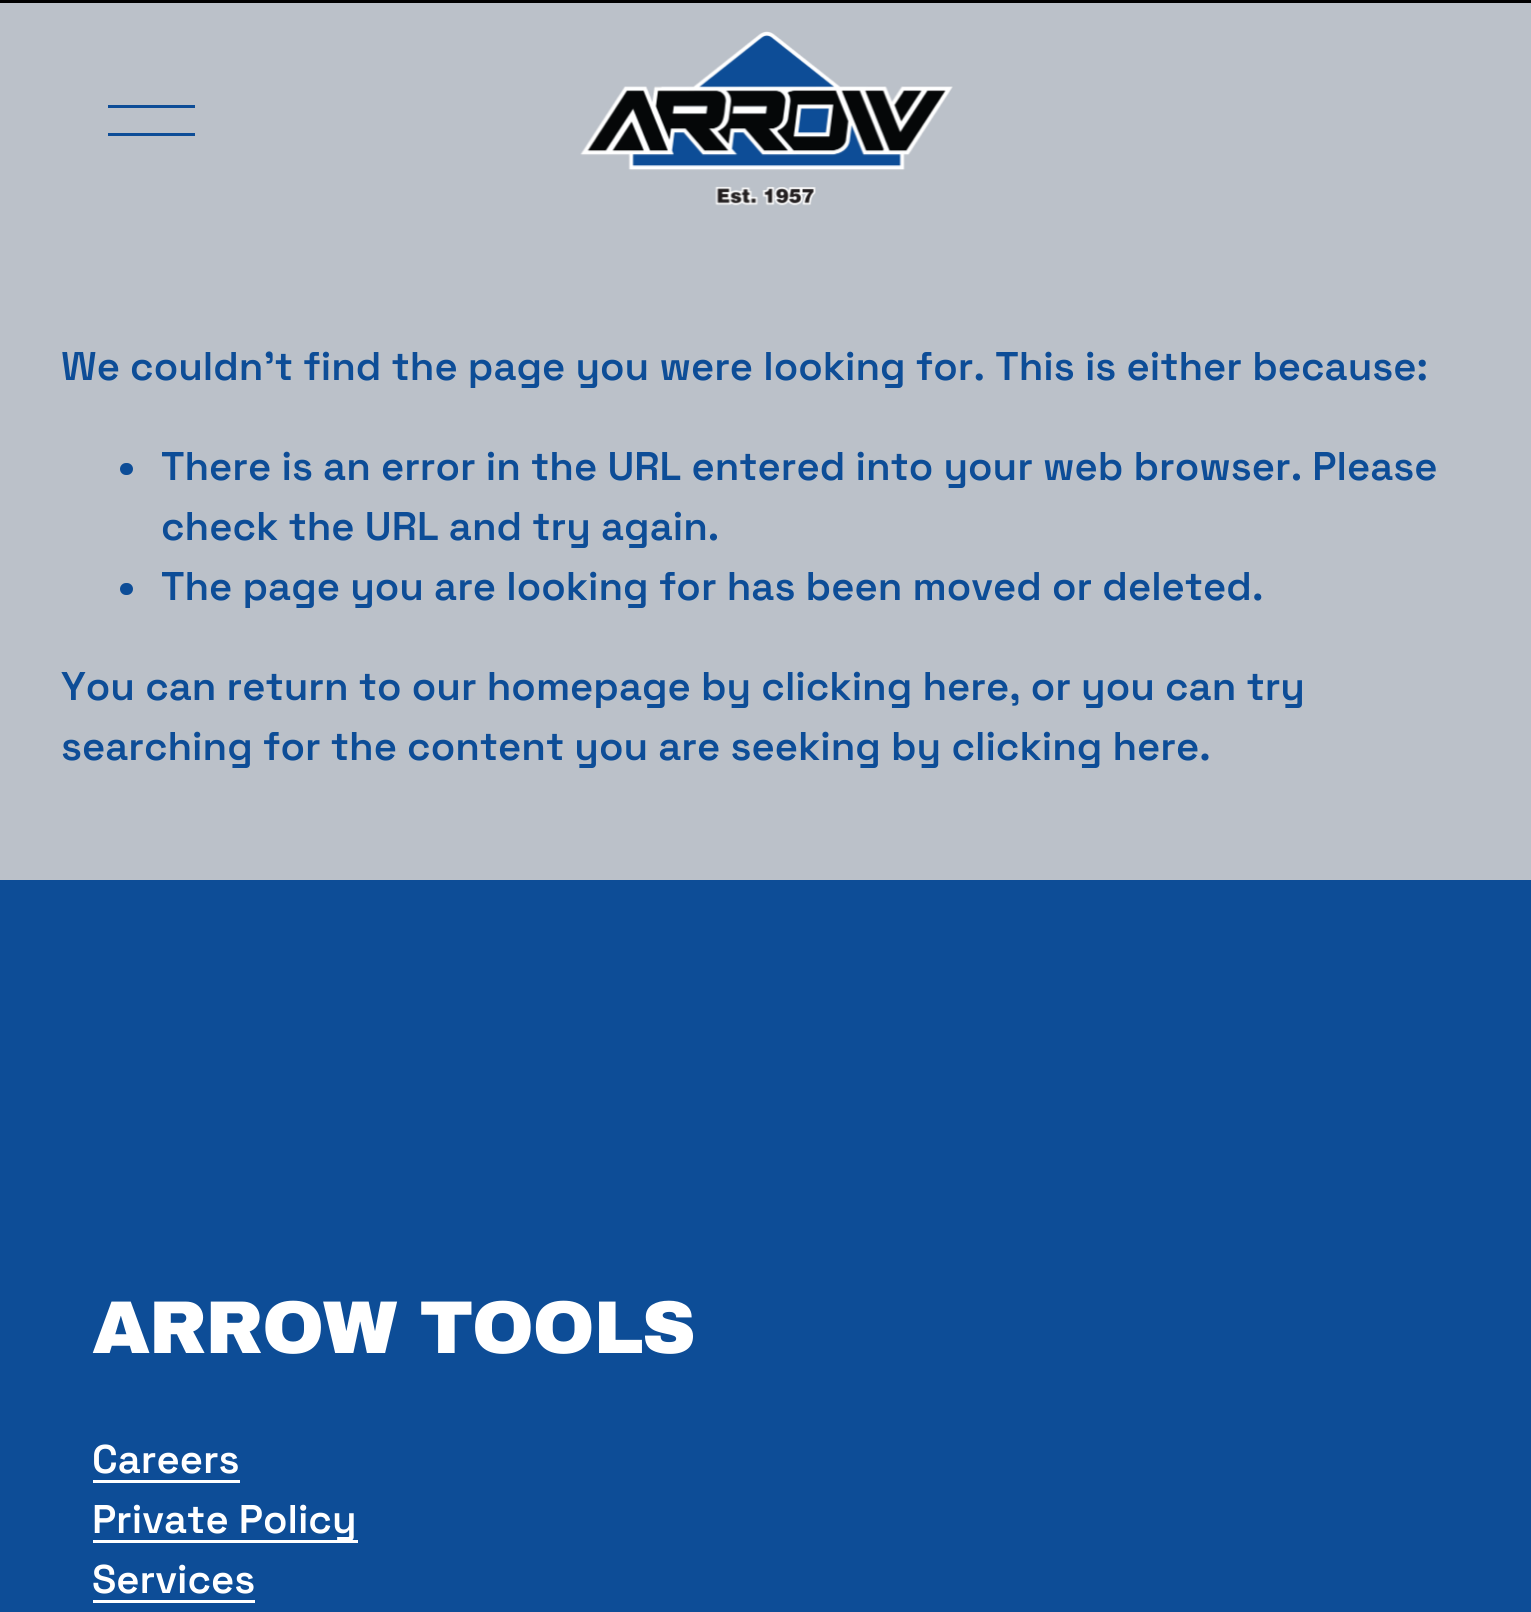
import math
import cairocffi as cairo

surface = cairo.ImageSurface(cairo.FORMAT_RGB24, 1531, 1612)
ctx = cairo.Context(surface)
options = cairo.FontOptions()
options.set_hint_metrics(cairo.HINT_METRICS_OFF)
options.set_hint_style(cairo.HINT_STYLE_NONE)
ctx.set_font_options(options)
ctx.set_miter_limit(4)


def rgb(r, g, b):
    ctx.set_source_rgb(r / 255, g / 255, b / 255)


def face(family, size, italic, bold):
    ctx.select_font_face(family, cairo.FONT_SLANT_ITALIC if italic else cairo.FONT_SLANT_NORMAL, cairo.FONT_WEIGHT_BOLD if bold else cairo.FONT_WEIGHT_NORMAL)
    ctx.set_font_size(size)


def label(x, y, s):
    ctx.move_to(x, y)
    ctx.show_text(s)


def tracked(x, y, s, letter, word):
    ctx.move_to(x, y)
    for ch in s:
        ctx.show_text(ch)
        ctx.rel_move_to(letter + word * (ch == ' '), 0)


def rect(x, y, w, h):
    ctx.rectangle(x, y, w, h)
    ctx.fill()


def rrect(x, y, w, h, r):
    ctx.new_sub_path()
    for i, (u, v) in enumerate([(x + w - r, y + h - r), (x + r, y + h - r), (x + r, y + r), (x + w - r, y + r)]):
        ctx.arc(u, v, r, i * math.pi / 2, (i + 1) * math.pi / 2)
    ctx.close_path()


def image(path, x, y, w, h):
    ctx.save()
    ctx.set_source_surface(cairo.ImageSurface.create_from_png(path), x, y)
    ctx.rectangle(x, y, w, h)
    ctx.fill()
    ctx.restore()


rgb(187, 193, 201)
ctx.paint()
rgb(0, 0, 0)
rect(0, 0, 1531, 3)
rgb(13, 77, 151)
rect(108, 105, 87, 3)
rect(108, 133, 87, 3)
image('image0.png', 580, 31, 373, 175)
face('Space Grotesk SemiBold', 40, 0, 0)
label(61, 380, 'We couldn\'t find the page you were looking for. This is either because:')
rrect(120, 463, 13, 12, 6)
ctx.fill()
label(161, 480, 'There is an error in the URL entered into your web browser. Please')
label(161, 540, 'check the URL and try again.')
rrect(120, 583, 13, 12, 6)
ctx.fill()
label(161, 600, 'The page you are looking for has been moved or deleted.')
label(61, 700, 'You can return to our homepage by clicking here, or you can try')
label(61, 760, 'searching for the content you are seeking by clicking here.')
rect(0, 880, 1531, 732)
face('Archivo Black Black', 74.75, 0, 0)
rgb(255, 255, 255)
tracked(92, 1353, 'ARROW TOOLS', -1.5, 0)
face('Space Grotesk SemiBold', 40, 0, 0)
label(92, 1473, 'Careers')
rect(93, 1480, 147, 3)
rect(93, 1540, 265, 3)
label(92, 1533, 'Private Policy')
label(92, 1593, 'Services')
rect(93, 1600, 162, 3)
surface.write_to_png('render.png')
